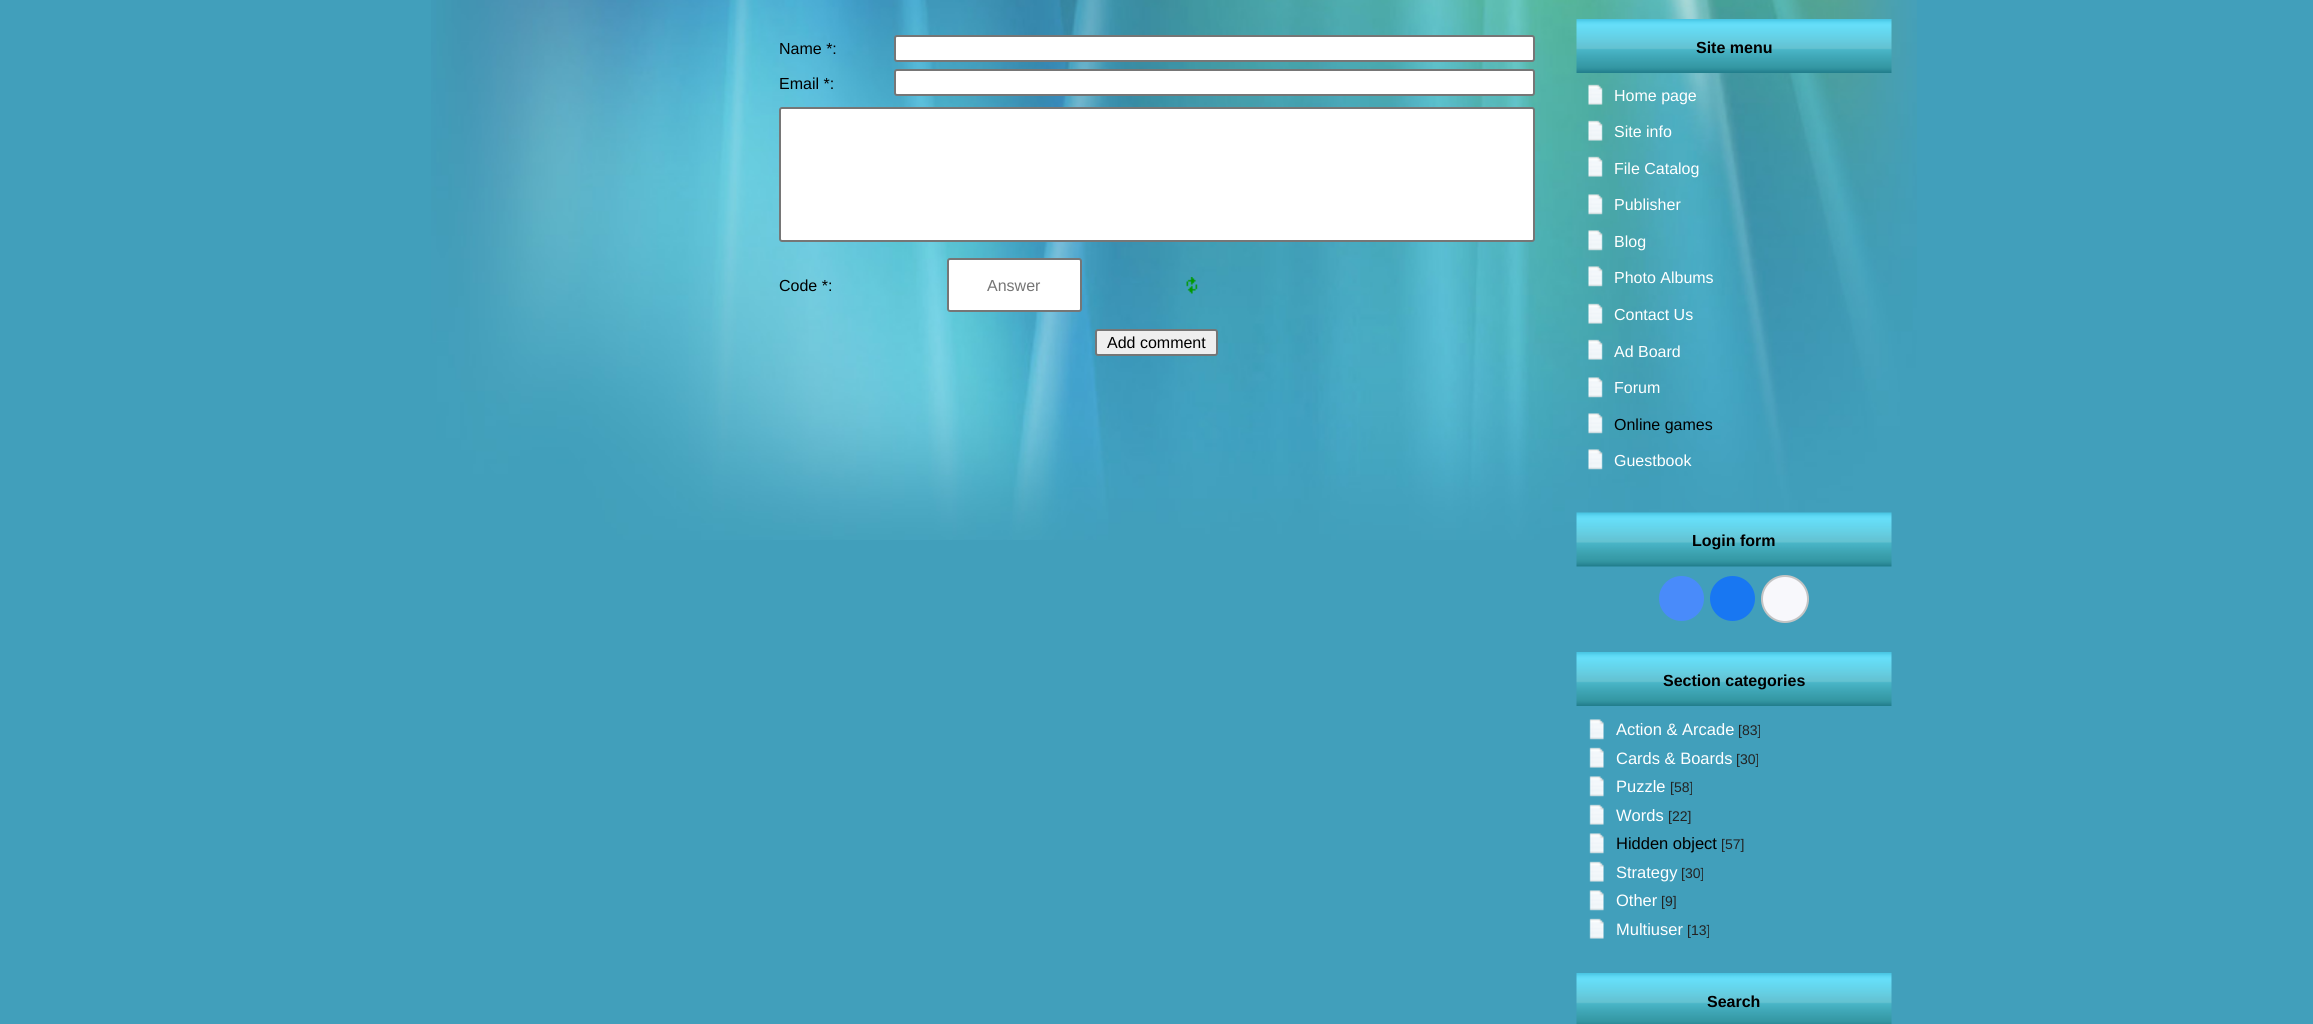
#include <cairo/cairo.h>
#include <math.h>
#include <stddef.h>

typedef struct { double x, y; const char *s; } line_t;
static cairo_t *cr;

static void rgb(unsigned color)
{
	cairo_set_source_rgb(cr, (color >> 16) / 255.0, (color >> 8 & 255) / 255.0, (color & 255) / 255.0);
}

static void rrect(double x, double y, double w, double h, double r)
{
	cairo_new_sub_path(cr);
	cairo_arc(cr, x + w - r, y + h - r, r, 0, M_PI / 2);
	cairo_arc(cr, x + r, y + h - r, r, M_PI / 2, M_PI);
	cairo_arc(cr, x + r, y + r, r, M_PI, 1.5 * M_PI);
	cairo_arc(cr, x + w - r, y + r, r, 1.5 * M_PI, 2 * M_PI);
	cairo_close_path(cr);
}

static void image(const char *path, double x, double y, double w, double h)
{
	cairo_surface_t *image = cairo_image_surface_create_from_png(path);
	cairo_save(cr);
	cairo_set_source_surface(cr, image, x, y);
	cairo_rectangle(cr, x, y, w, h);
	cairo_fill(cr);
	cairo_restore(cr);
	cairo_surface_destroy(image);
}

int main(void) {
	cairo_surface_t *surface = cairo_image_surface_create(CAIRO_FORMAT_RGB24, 2313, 1024);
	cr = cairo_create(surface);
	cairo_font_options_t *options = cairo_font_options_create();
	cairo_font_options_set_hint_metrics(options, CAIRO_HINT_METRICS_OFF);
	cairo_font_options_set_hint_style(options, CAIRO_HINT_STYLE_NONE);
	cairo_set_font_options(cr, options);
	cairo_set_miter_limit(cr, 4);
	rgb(0x419fbb);
	cairo_paint(cr);
	image("img/1.png", 431, 0, 1486, 540);
	rgb(0xffffff);
	rrect(895, 36, 639, 25, 2);
	cairo_fill_preserve(cr);
	rgb(0x767676);
	cairo_stroke(cr);
	rgb(0xffffff);
	rrect(895, 70, 639, 25, 2);
	cairo_fill_preserve(cr);
	rgb(0x767676);
	cairo_stroke(cr);
	rgb(0xffffff);
	rrect(780, 108, 754, 133, 2);
	cairo_fill_preserve(cr);
	rgb(0x767676);
	cairo_stroke(cr);
	rgb(0xffffff);
	rrect(948, 259, 133, 52, 2);
	cairo_fill_preserve(cr);
	rgb(0x767676);
	cairo_stroke(cr);
	image("img/2.png", 1186, 277, 12, 17);
	rgb(0xefefef);
	rrect(1096, 330, 121, 25, 2);
	cairo_fill_preserve(cr);
	rgb(0x767676);
	cairo_stroke(cr);
	image("img/3.png", 1576, 19, 316, 54);
	image("img/4.png", 1588, 84, 15, 21);
	image("img/5.png", 1588, 120, 15, 21);
	image("img/6.png", 1588, 156, 15, 21);
	image("img/7.png", 1588, 194, 15, 21);
	image("img/8.png", 1588, 230, 15, 21);
	image("img/9.png", 1588, 266, 15, 21);
	image("img/10.png", 1588, 303, 15, 21);
	image("img/11.png", 1588, 339, 15, 21);
	image("img/12.png", 1588, 377, 15, 21);
	image("img/13.png", 1588, 413, 15, 21);
	image("img/14.png", 1588, 449, 15, 21);
	image("img/15.png", 1576, 512, 316, 55);
	rgb(0x498bfa);
	cairo_arc(cr, 1681.5, 598.5, 22.5, 0, 2 * M_PI);
	cairo_fill(cr);
	rgb(0x1877f2);
	cairo_arc(cr, 1732.5, 598.5, 22.5, 0, 2 * M_PI);
	cairo_fill(cr);
	rgb(0xf8f8fc);
	cairo_arc(cr, 1785, 599, 23, 0, 2 * M_PI);
	cairo_fill_preserve(cr);
	rgb(0xc4c4c4);
	cairo_stroke(cr);
	image("img/16.png", 1576, 652, 316, 54);
	image("img/17.png", 1589, 719, 15, 21);
	image("img/18.png", 1589, 747, 15, 21);
	image("img/17.png", 1589, 776, 15, 21);
	image("img/18.png", 1589, 804, 15, 21);
	image("img/17.png", 1589, 833, 15, 21);
	image("img/18.png", 1589, 861, 15, 21);
	image("img/17.png", 1589, 890, 15, 21);
	image("img/18.png", 1589, 918, 15, 21);
	image("img/19.png", 1576, 973, 316, 51);
	cairo_select_font_face(cr, "Liberation Sans", CAIRO_FONT_SLANT_NORMAL, CAIRO_FONT_WEIGHT_NORMAL);
	cairo_set_font_size(cr, 16);
	rgb(0x000000);
	{
		static const line_t items[] = {
			{779, 54, "Name *:"},
			{779, 89, "Email *:"},
			{779, 291, "Code *:"},
		};
		for (size_t i = 0; i < sizeof items / sizeof *items; i++) {
			cairo_move_to(cr, items[i].x, items[i].y);
			cairo_show_text(cr, items[i].s);
		}
	}
	rgb(0x757575);
	cairo_move_to(cr, 987, 291);
	cairo_show_text(cr, "Answer");
	rgb(0x000000);
	cairo_move_to(cr, 1107, 348);
	cairo_show_text(cr, "Add comment");
	cairo_select_font_face(cr, "Liberation Sans", CAIRO_FONT_SLANT_NORMAL, CAIRO_FONT_WEIGHT_BOLD);
	cairo_move_to(cr, 1696, 53);
	cairo_show_text(cr, "Site menu");
	cairo_select_font_face(cr, "Liberation Sans", CAIRO_FONT_SLANT_NORMAL, CAIRO_FONT_WEIGHT_NORMAL);
	rgb(0xffffff);
	{
		static const line_t items[] = {
			{1614, 101, "Home page"},
			{1614, 137, "Site info"},
			{1614, 174, "File Catalog"},
			{1614, 210, "Publisher"},
			{1614, 247, "Blog"},
			{1614, 283, "Photo Albums"},
			{1614, 320, "Contact Us"},
			{1614, 357, "Ad Board"},
			{1614, 393, "Forum"},
		};
		for (size_t i = 0; i < sizeof items / sizeof *items; i++) {
			cairo_move_to(cr, items[i].x, items[i].y);
			cairo_show_text(cr, items[i].s);
		}
	}
	rgb(0x000000);
	cairo_move_to(cr, 1614, 430);
	cairo_show_text(cr, "Online games");
	rgb(0xffffff);
	cairo_move_to(cr, 1614, 466);
	cairo_show_text(cr, "Guestbook");
	cairo_select_font_face(cr, "Liberation Sans", CAIRO_FONT_SLANT_NORMAL, CAIRO_FONT_WEIGHT_BOLD);
	rgb(0x000000);
	cairo_move_to(cr, 1692, 546);
	cairo_show_text(cr, "Login form");
	cairo_move_to(cr, 1663, 686);
	cairo_show_text(cr, "Section categories");
	cairo_select_font_face(cr, "Liberation Sans", CAIRO_FONT_SLANT_NORMAL, CAIRO_FONT_WEIGHT_NORMAL);
	cairo_set_font_size(cr, 16.5);
	rgb(0xffffff);
	cairo_move_to(cr, 1616, 735);
	cairo_show_text(cr, "Action & Arcade");
	cairo_set_font_size(cr, 14);
	rgb(0x222222);
	cairo_move_to(cr, 1738, 735);
	cairo_show_text(cr, "[83]");
	cairo_set_font_size(cr, 16.5);
	rgb(0xffffff);
	cairo_move_to(cr, 1616, 764);
	cairo_show_text(cr, "Cards & Boards");
	cairo_set_font_size(cr, 14);
	rgb(0x222222);
	cairo_move_to(cr, 1736, 764);
	cairo_show_text(cr, "[30]");
	cairo_set_font_size(cr, 16.5);
	rgb(0xffffff);
	cairo_move_to(cr, 1616, 792);
	cairo_show_text(cr, "Puzzle");
	cairo_set_font_size(cr, 14);
	rgb(0x222222);
	cairo_move_to(cr, 1670, 792);
	cairo_show_text(cr, "[58]");
	cairo_set_font_size(cr, 16.5);
	rgb(0xffffff);
	cairo_move_to(cr, 1616, 821);
	cairo_show_text(cr, "Words");
	cairo_set_font_size(cr, 14);
	rgb(0x222222);
	cairo_move_to(cr, 1668, 821);
	cairo_show_text(cr, "[22]");
	cairo_set_font_size(cr, 16.5);
	rgb(0x000000);
	cairo_move_to(cr, 1616, 849);
	cairo_show_text(cr, "Hidden object");
	cairo_set_font_size(cr, 14);
	rgb(0x222222);
	cairo_move_to(cr, 1721, 849);
	cairo_show_text(cr, "[57]");
	cairo_set_font_size(cr, 16.5);
	rgb(0xffffff);
	cairo_move_to(cr, 1616, 878);
	cairo_show_text(cr, "Strategy");
	cairo_set_font_size(cr, 14);
	rgb(0x222222);
	cairo_move_to(cr, 1681, 878);
	cairo_show_text(cr, "[30]");
	cairo_set_font_size(cr, 16.5);
	rgb(0xffffff);
	cairo_move_to(cr, 1616, 906);
	cairo_show_text(cr, "Other");
	cairo_set_font_size(cr, 14);
	rgb(0x222222);
	cairo_move_to(cr, 1661, 906);
	cairo_show_text(cr, "[9]");
	cairo_set_font_size(cr, 16.5);
	rgb(0xffffff);
	cairo_move_to(cr, 1616, 935);
	cairo_show_text(cr, "Multiuser");
	cairo_set_font_size(cr, 14);
	rgb(0x222222);
	cairo_move_to(cr, 1687, 935);
	cairo_show_text(cr, "[13]");
	cairo_select_font_face(cr, "Liberation Sans", CAIRO_FONT_SLANT_NORMAL, CAIRO_FONT_WEIGHT_BOLD);
	cairo_set_font_size(cr, 16);
	rgb(0x000000);
	cairo_move_to(cr, 1707, 1007);
	cairo_show_text(cr, "Search");
	cairo_surface_write_to_png(surface, "page.png");
	cairo_font_options_destroy(options);
	cairo_destroy(cr);
	cairo_surface_destroy(surface);
	return 0;
}
